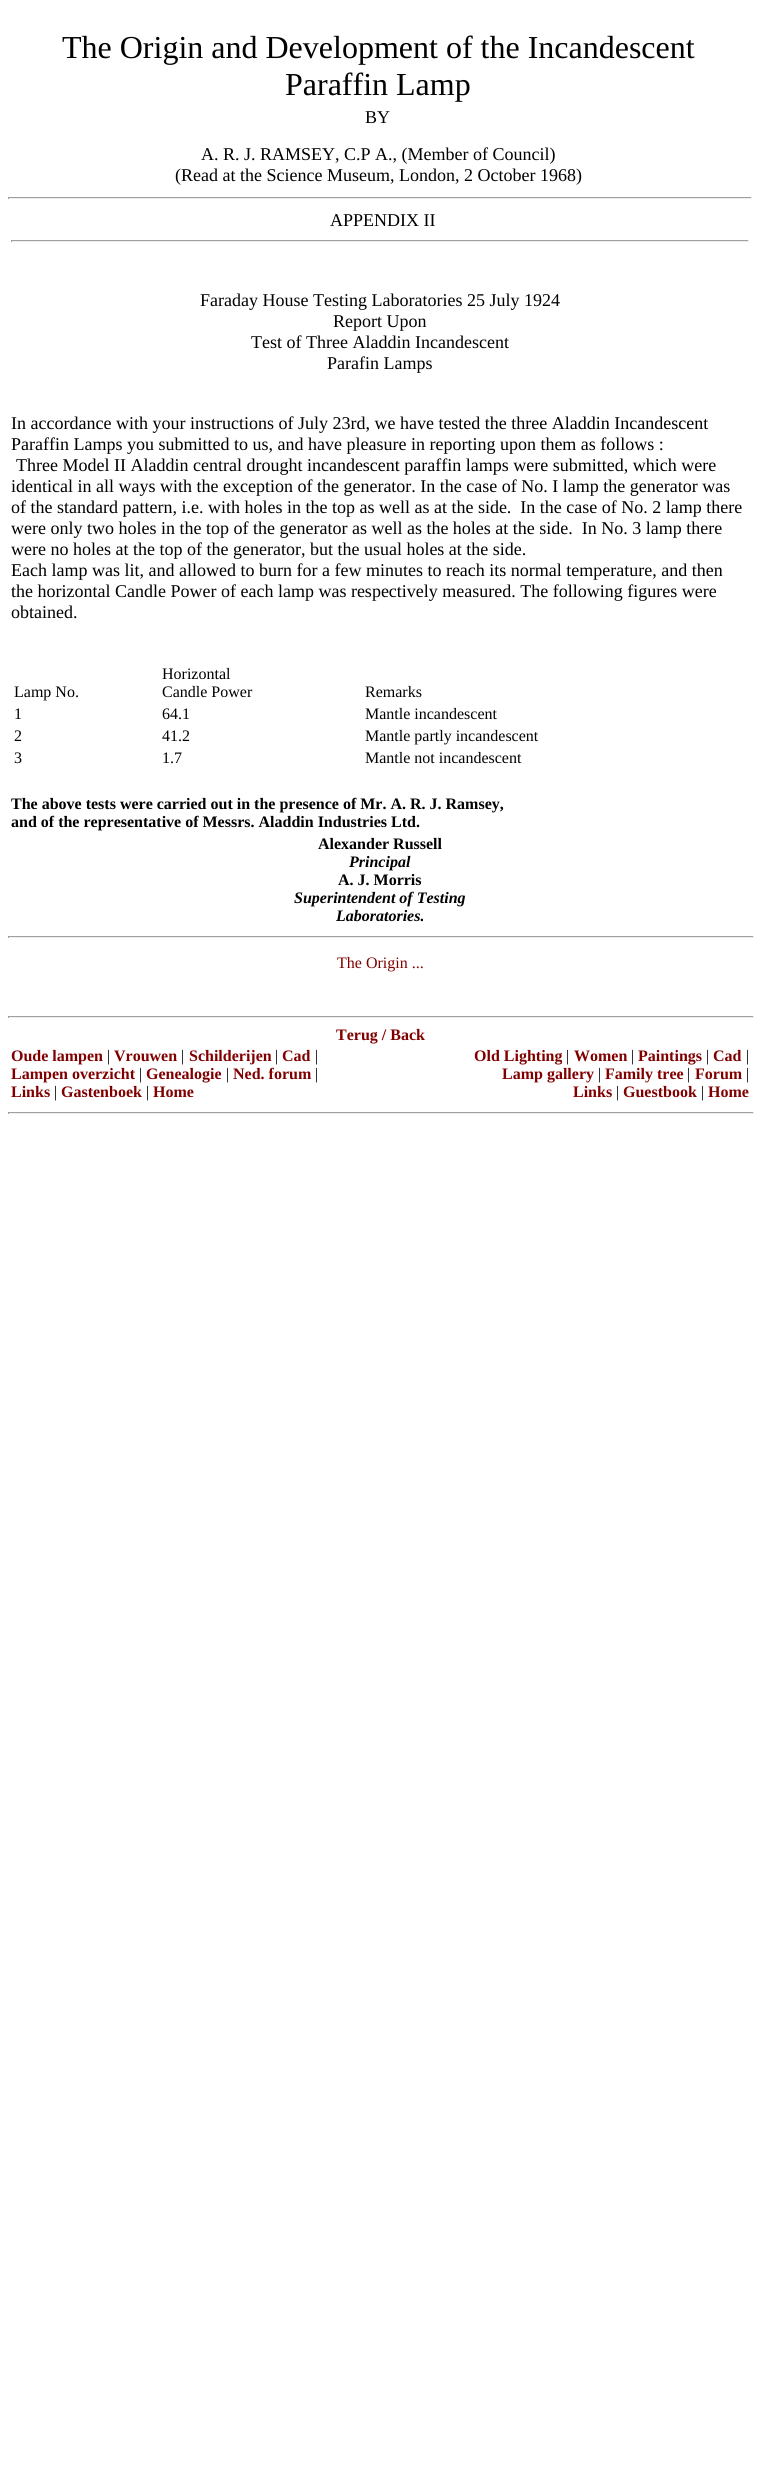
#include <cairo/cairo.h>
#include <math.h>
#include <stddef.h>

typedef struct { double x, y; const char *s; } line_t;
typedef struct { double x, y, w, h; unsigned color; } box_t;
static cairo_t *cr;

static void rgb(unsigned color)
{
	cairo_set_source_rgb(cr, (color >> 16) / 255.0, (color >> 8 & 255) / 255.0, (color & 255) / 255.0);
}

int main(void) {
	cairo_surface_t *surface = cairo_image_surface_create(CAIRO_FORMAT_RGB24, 760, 2478);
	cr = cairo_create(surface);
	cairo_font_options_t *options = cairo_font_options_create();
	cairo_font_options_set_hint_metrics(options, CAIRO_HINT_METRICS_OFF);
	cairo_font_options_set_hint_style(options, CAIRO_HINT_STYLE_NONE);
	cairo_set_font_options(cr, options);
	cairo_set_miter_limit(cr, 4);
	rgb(0xffffff);
	cairo_paint(cr);
	{
		static const box_t items[] = {
			{8, 197, 744, 1, 0x9f9f9f},
			{751, 197, 1, 2, 0xeeeeee},
			{8, 198, 744, 1, 0xeeeeee},
			{8, 197, 1, 2, 0x9f9f9f},
			{11, 240, 738, 1, 0x9f9f9f},
			{748, 240, 1, 2, 0xeeeeee},
			{11, 241, 738, 1, 0xeeeeee},
			{11, 240, 1, 2, 0x9f9f9f},
			{8, 936, 746, 1, 0x9f9f9f},
			{753, 936, 1, 2, 0xeeeeee},
			{8, 937, 746, 1, 0xeeeeee},
			{8, 936, 1, 2, 0x9f9f9f},
			{8, 1016, 746, 1, 0x9f9f9f},
			{753, 1016, 1, 2, 0xeeeeee},
			{8, 1017, 746, 1, 0xeeeeee},
			{8, 1016, 1, 2, 0x9f9f9f},
			{8, 1112, 746, 1, 0x9f9f9f},
			{753, 1112, 1, 2, 0xeeeeee},
			{8, 1113, 746, 1, 0xeeeeee},
			{8, 1112, 1, 2, 0x9f9f9f},
		};
		for (size_t i = 0; i < sizeof items / sizeof *items; i++) {
			rgb(items[i].color);
			cairo_rectangle(cr, items[i].x, items[i].y, items[i].w, items[i].h);
			cairo_fill(cr);
		}
	}
	cairo_select_font_face(cr, "Liberation Serif", CAIRO_FONT_SLANT_NORMAL, CAIRO_FONT_WEIGHT_NORMAL);
	cairo_set_font_size(cr, 32);
	rgb(0x000000);
	cairo_move_to(cr, 62, 58);
	cairo_show_text(cr, "The Origin and Development of the Incandescent");
	cairo_move_to(cr, 285, 95);
	cairo_show_text(cr, "Paraffin Lamp");
	cairo_set_font_size(cr, 18);
	{
		static const line_t items[] = {
			{365, 123, "BY"},
			{201, 160, "A. R. J. RAMSEY, C.P A., (Member of Council)"},
			{175, 181, "(Read at the Science Museum, London, 2 October 1968)"},
			{330, 226, "APPENDIX II"},
			{200, 306, "Faraday House Testing Laboratories 25 July 1924"},
			{333, 327, "Report Upon"},
			{251, 348, "Test of Three Aladdin Incandescent"},
			{327, 369, "Parafin Lamps"},
			{11, 429, "In accordance with your instructions of July 23rd, we have tested the three Aladdin Incandescent"},
			{11, 450, "Paraffin Lamps you submitted to us, and have pleasure in reporting upon them as follows :"},
			{16, 471, "Three Model II Aladdin central drought incandescent paraffin lamps were submitted, which were"},
			{11, 492, "identical in all ways with the exception of the generator. In the case of No. I lamp the generator was"},
			{11, 513, "of the standard pattern, i.e. with holes in the top as well as at the side.  In the case of No. 2 lamp there"},
			{11, 534, "were only two holes in the top of the generator as well as the holes at the side.  In No. 3 lamp there"},
			{11, 555, "were no holes at the top of the generator, but the usual holes at the side."},
			{11, 576, "Each lamp was lit, and allowed to burn for a few minutes to reach its normal temperature, and then"},
			{11, 597, "the horizontal Candle Power of each lamp was respectively measured. The following figures were"},
			{11, 618, "obtained."},
		};
		for (size_t i = 0; i < sizeof items / sizeof *items; i++) {
			cairo_move_to(cr, items[i].x, items[i].y);
			cairo_show_text(cr, items[i].s);
		}
	}
	cairo_set_font_size(cr, 16);
	{
		static const line_t items[] = {
			{14, 697, "Lamp No."},
			{162, 679, "Horizontal"},
			{162, 697, "Candle Power"},
			{365, 697, "Remarks"},
			{14, 719, "1"},
			{162, 719, "64.1"},
			{365, 719, "Mantle incandescent"},
			{14, 741, "2"},
			{162, 741, "41.2"},
			{365, 741, "Mantle partly incandescent"},
			{14, 763, "3"},
			{162, 763, "1.7"},
			{365, 763, "Mantle not incandescent"},
		};
		for (size_t i = 0; i < sizeof items / sizeof *items; i++) {
			cairo_move_to(cr, items[i].x, items[i].y);
			cairo_show_text(cr, items[i].s);
		}
	}
	cairo_select_font_face(cr, "Liberation Serif", CAIRO_FONT_SLANT_NORMAL, CAIRO_FONT_WEIGHT_BOLD);
	{
		static const line_t items[] = {
			{11, 809, "The above tests were carried out in the presence of Mr. A. R. J. Ramsey,"},
			{11, 827, "and of the representative of Messrs. Aladdin Industries Ltd."},
			{318, 849, "Alexander Russell"},
		};
		for (size_t i = 0; i < sizeof items / sizeof *items; i++) {
			cairo_move_to(cr, items[i].x, items[i].y);
			cairo_show_text(cr, items[i].s);
		}
	}
	cairo_select_font_face(cr, "Liberation Serif", CAIRO_FONT_SLANT_ITALIC, CAIRO_FONT_WEIGHT_BOLD);
	cairo_move_to(cr, 349, 867);
	cairo_show_text(cr, "Principal");
	cairo_select_font_face(cr, "Liberation Serif", CAIRO_FONT_SLANT_NORMAL, CAIRO_FONT_WEIGHT_BOLD);
	cairo_move_to(cr, 338, 885);
	cairo_show_text(cr, "A. J. Morris");
	cairo_select_font_face(cr, "Liberation Serif", CAIRO_FONT_SLANT_ITALIC, CAIRO_FONT_WEIGHT_BOLD);
	cairo_move_to(cr, 294, 903);
	cairo_show_text(cr, "Superintendent of Testing");
	cairo_move_to(cr, 336, 921);
	cairo_show_text(cr, "Laboratories.");
	cairo_select_font_face(cr, "Liberation Serif", CAIRO_FONT_SLANT_NORMAL, CAIRO_FONT_WEIGHT_NORMAL);
	rgb(0x800000);
	cairo_move_to(cr, 337, 968);
	cairo_show_text(cr, "The Origin ...");
	cairo_select_font_face(cr, "Liberation Serif", CAIRO_FONT_SLANT_NORMAL, CAIRO_FONT_WEIGHT_BOLD);
	cairo_move_to(cr, 336, 1040);
	cairo_show_text(cr, "Terug / Back");
	cairo_move_to(cr, 11, 1061);
	cairo_show_text(cr, "Oude lampen");
	cairo_select_font_face(cr, "Liberation Serif", CAIRO_FONT_SLANT_NORMAL, CAIRO_FONT_WEIGHT_NORMAL);
	rgb(0x000000);
	cairo_move_to(cr, 107, 1061);
	cairo_show_text(cr, "|");
	cairo_select_font_face(cr, "Liberation Serif", CAIRO_FONT_SLANT_NORMAL, CAIRO_FONT_WEIGHT_BOLD);
	rgb(0x800000);
	cairo_move_to(cr, 114, 1061);
	cairo_show_text(cr, "Vrouwen");
	cairo_select_font_face(cr, "Liberation Serif", CAIRO_FONT_SLANT_NORMAL, CAIRO_FONT_WEIGHT_NORMAL);
	rgb(0x000000);
	cairo_move_to(cr, 181, 1061);
	cairo_show_text(cr, "|");
	cairo_select_font_face(cr, "Liberation Serif", CAIRO_FONT_SLANT_NORMAL, CAIRO_FONT_WEIGHT_BOLD);
	rgb(0x800000);
	cairo_move_to(cr, 189, 1061);
	cairo_show_text(cr, "Schilderijen");
	cairo_select_font_face(cr, "Liberation Serif", CAIRO_FONT_SLANT_NORMAL, CAIRO_FONT_WEIGHT_NORMAL);
	rgb(0x000000);
	cairo_move_to(cr, 275, 1061);
	cairo_show_text(cr, "|");
	cairo_select_font_face(cr, "Liberation Serif", CAIRO_FONT_SLANT_NORMAL, CAIRO_FONT_WEIGHT_BOLD);
	rgb(0x800000);
	cairo_move_to(cr, 282, 1061);
	cairo_show_text(cr, "Cad");
	cairo_select_font_face(cr, "Liberation Serif", CAIRO_FONT_SLANT_NORMAL, CAIRO_FONT_WEIGHT_NORMAL);
	rgb(0x000000);
	cairo_move_to(cr, 315, 1061);
	cairo_show_text(cr, "|");
	cairo_select_font_face(cr, "Liberation Serif", CAIRO_FONT_SLANT_NORMAL, CAIRO_FONT_WEIGHT_BOLD);
	rgb(0x800000);
	cairo_move_to(cr, 11, 1079);
	cairo_show_text(cr, "Lampen overzicht");
	cairo_select_font_face(cr, "Liberation Serif", CAIRO_FONT_SLANT_NORMAL, CAIRO_FONT_WEIGHT_NORMAL);
	rgb(0x000000);
	cairo_move_to(cr, 139, 1079);
	cairo_show_text(cr, "|");
	cairo_select_font_face(cr, "Liberation Serif", CAIRO_FONT_SLANT_NORMAL, CAIRO_FONT_WEIGHT_BOLD);
	rgb(0x800000);
	cairo_move_to(cr, 146, 1079);
	cairo_show_text(cr, "Genealogie");
	cairo_select_font_face(cr, "Liberation Serif", CAIRO_FONT_SLANT_NORMAL, CAIRO_FONT_WEIGHT_NORMAL);
	rgb(0x000000);
	cairo_move_to(cr, 226, 1079);
	cairo_show_text(cr, "|");
	cairo_select_font_face(cr, "Liberation Serif", CAIRO_FONT_SLANT_NORMAL, CAIRO_FONT_WEIGHT_BOLD);
	rgb(0x800000);
	cairo_move_to(cr, 233, 1079);
	cairo_show_text(cr, "Ned. forum");
	cairo_select_font_face(cr, "Liberation Serif", CAIRO_FONT_SLANT_NORMAL, CAIRO_FONT_WEIGHT_NORMAL);
	rgb(0x000000);
	cairo_move_to(cr, 315, 1079);
	cairo_show_text(cr, "|");
	cairo_select_font_face(cr, "Liberation Serif", CAIRO_FONT_SLANT_NORMAL, CAIRO_FONT_WEIGHT_BOLD);
	rgb(0x800000);
	cairo_move_to(cr, 11, 1097);
	cairo_show_text(cr, "Links");
	cairo_select_font_face(cr, "Liberation Serif", CAIRO_FONT_SLANT_NORMAL, CAIRO_FONT_WEIGHT_NORMAL);
	rgb(0x000000);
	cairo_move_to(cr, 54, 1097);
	cairo_show_text(cr, "|");
	cairo_select_font_face(cr, "Liberation Serif", CAIRO_FONT_SLANT_NORMAL, CAIRO_FONT_WEIGHT_BOLD);
	rgb(0x800000);
	cairo_move_to(cr, 61, 1097);
	cairo_show_text(cr, "Gastenboek");
	cairo_select_font_face(cr, "Liberation Serif", CAIRO_FONT_SLANT_NORMAL, CAIRO_FONT_WEIGHT_NORMAL);
	rgb(0x000000);
	cairo_move_to(cr, 146, 1097);
	cairo_show_text(cr, "|");
	cairo_select_font_face(cr, "Liberation Serif", CAIRO_FONT_SLANT_NORMAL, CAIRO_FONT_WEIGHT_BOLD);
	rgb(0x800000);
	cairo_move_to(cr, 153, 1097);
	cairo_show_text(cr, "Home");
	cairo_move_to(cr, 474, 1061);
	cairo_show_text(cr, "Old Lighting");
	cairo_select_font_face(cr, "Liberation Serif", CAIRO_FONT_SLANT_NORMAL, CAIRO_FONT_WEIGHT_NORMAL);
	rgb(0x000000);
	cairo_move_to(cr, 566, 1061);
	cairo_show_text(cr, "|");
	cairo_select_font_face(cr, "Liberation Serif", CAIRO_FONT_SLANT_NORMAL, CAIRO_FONT_WEIGHT_BOLD);
	rgb(0x800000);
	cairo_move_to(cr, 574, 1061);
	cairo_show_text(cr, "Women");
	cairo_select_font_face(cr, "Liberation Serif", CAIRO_FONT_SLANT_NORMAL, CAIRO_FONT_WEIGHT_NORMAL);
	rgb(0x000000);
	cairo_move_to(cr, 631, 1061);
	cairo_show_text(cr, "|");
	cairo_select_font_face(cr, "Liberation Serif", CAIRO_FONT_SLANT_NORMAL, CAIRO_FONT_WEIGHT_BOLD);
	rgb(0x800000);
	cairo_move_to(cr, 638, 1061);
	cairo_show_text(cr, "Paintings");
	cairo_select_font_face(cr, "Liberation Serif", CAIRO_FONT_SLANT_NORMAL, CAIRO_FONT_WEIGHT_NORMAL);
	rgb(0x000000);
	cairo_move_to(cr, 706, 1061);
	cairo_show_text(cr, "|");
	cairo_select_font_face(cr, "Liberation Serif", CAIRO_FONT_SLANT_NORMAL, CAIRO_FONT_WEIGHT_BOLD);
	rgb(0x800000);
	cairo_move_to(cr, 713, 1061);
	cairo_show_text(cr, "Cad");
	cairo_select_font_face(cr, "Liberation Serif", CAIRO_FONT_SLANT_NORMAL, CAIRO_FONT_WEIGHT_NORMAL);
	rgb(0x000000);
	cairo_move_to(cr, 746, 1061);
	cairo_show_text(cr, "|");
	cairo_select_font_face(cr, "Liberation Serif", CAIRO_FONT_SLANT_NORMAL, CAIRO_FONT_WEIGHT_BOLD);
	rgb(0x800000);
	cairo_move_to(cr, 502, 1079);
	cairo_show_text(cr, "Lamp gallery");
	cairo_select_font_face(cr, "Liberation Serif", CAIRO_FONT_SLANT_NORMAL, CAIRO_FONT_WEIGHT_NORMAL);
	rgb(0x000000);
	cairo_move_to(cr, 598, 1079);
	cairo_show_text(cr, "|");
	cairo_select_font_face(cr, "Liberation Serif", CAIRO_FONT_SLANT_NORMAL, CAIRO_FONT_WEIGHT_BOLD);
	rgb(0x800000);
	cairo_move_to(cr, 605, 1079);
	cairo_show_text(cr, "Family tree");
	cairo_select_font_face(cr, "Liberation Serif", CAIRO_FONT_SLANT_NORMAL, CAIRO_FONT_WEIGHT_NORMAL);
	rgb(0x000000);
	cairo_move_to(cr, 687, 1079);
	cairo_show_text(cr, "|");
	cairo_select_font_face(cr, "Liberation Serif", CAIRO_FONT_SLANT_NORMAL, CAIRO_FONT_WEIGHT_BOLD);
	rgb(0x800000);
	cairo_move_to(cr, 695, 1079);
	cairo_show_text(cr, "Forum");
	cairo_select_font_face(cr, "Liberation Serif", CAIRO_FONT_SLANT_NORMAL, CAIRO_FONT_WEIGHT_NORMAL);
	rgb(0x000000);
	cairo_move_to(cr, 746, 1079);
	cairo_show_text(cr, "|");
	cairo_select_font_face(cr, "Liberation Serif", CAIRO_FONT_SLANT_NORMAL, CAIRO_FONT_WEIGHT_BOLD);
	rgb(0x800000);
	cairo_move_to(cr, 573, 1097);
	cairo_show_text(cr, "Links");
	cairo_select_font_face(cr, "Liberation Serif", CAIRO_FONT_SLANT_NORMAL, CAIRO_FONT_WEIGHT_NORMAL);
	rgb(0x000000);
	cairo_move_to(cr, 616, 1097);
	cairo_show_text(cr, "|");
	cairo_select_font_face(cr, "Liberation Serif", CAIRO_FONT_SLANT_NORMAL, CAIRO_FONT_WEIGHT_BOLD);
	rgb(0x800000);
	cairo_move_to(cr, 623, 1097);
	cairo_show_text(cr, "Guestbook");
	cairo_select_font_face(cr, "Liberation Serif", CAIRO_FONT_SLANT_NORMAL, CAIRO_FONT_WEIGHT_NORMAL);
	rgb(0x000000);
	cairo_move_to(cr, 701, 1097);
	cairo_show_text(cr, "|");
	cairo_select_font_face(cr, "Liberation Serif", CAIRO_FONT_SLANT_NORMAL, CAIRO_FONT_WEIGHT_BOLD);
	rgb(0x800000);
	cairo_move_to(cr, 708, 1097);
	cairo_show_text(cr, "Home");
	cairo_surface_write_to_png(surface, "page.png");
	cairo_font_options_destroy(options);
	cairo_destroy(cr);
	cairo_surface_destroy(surface);
	return 0;
}
